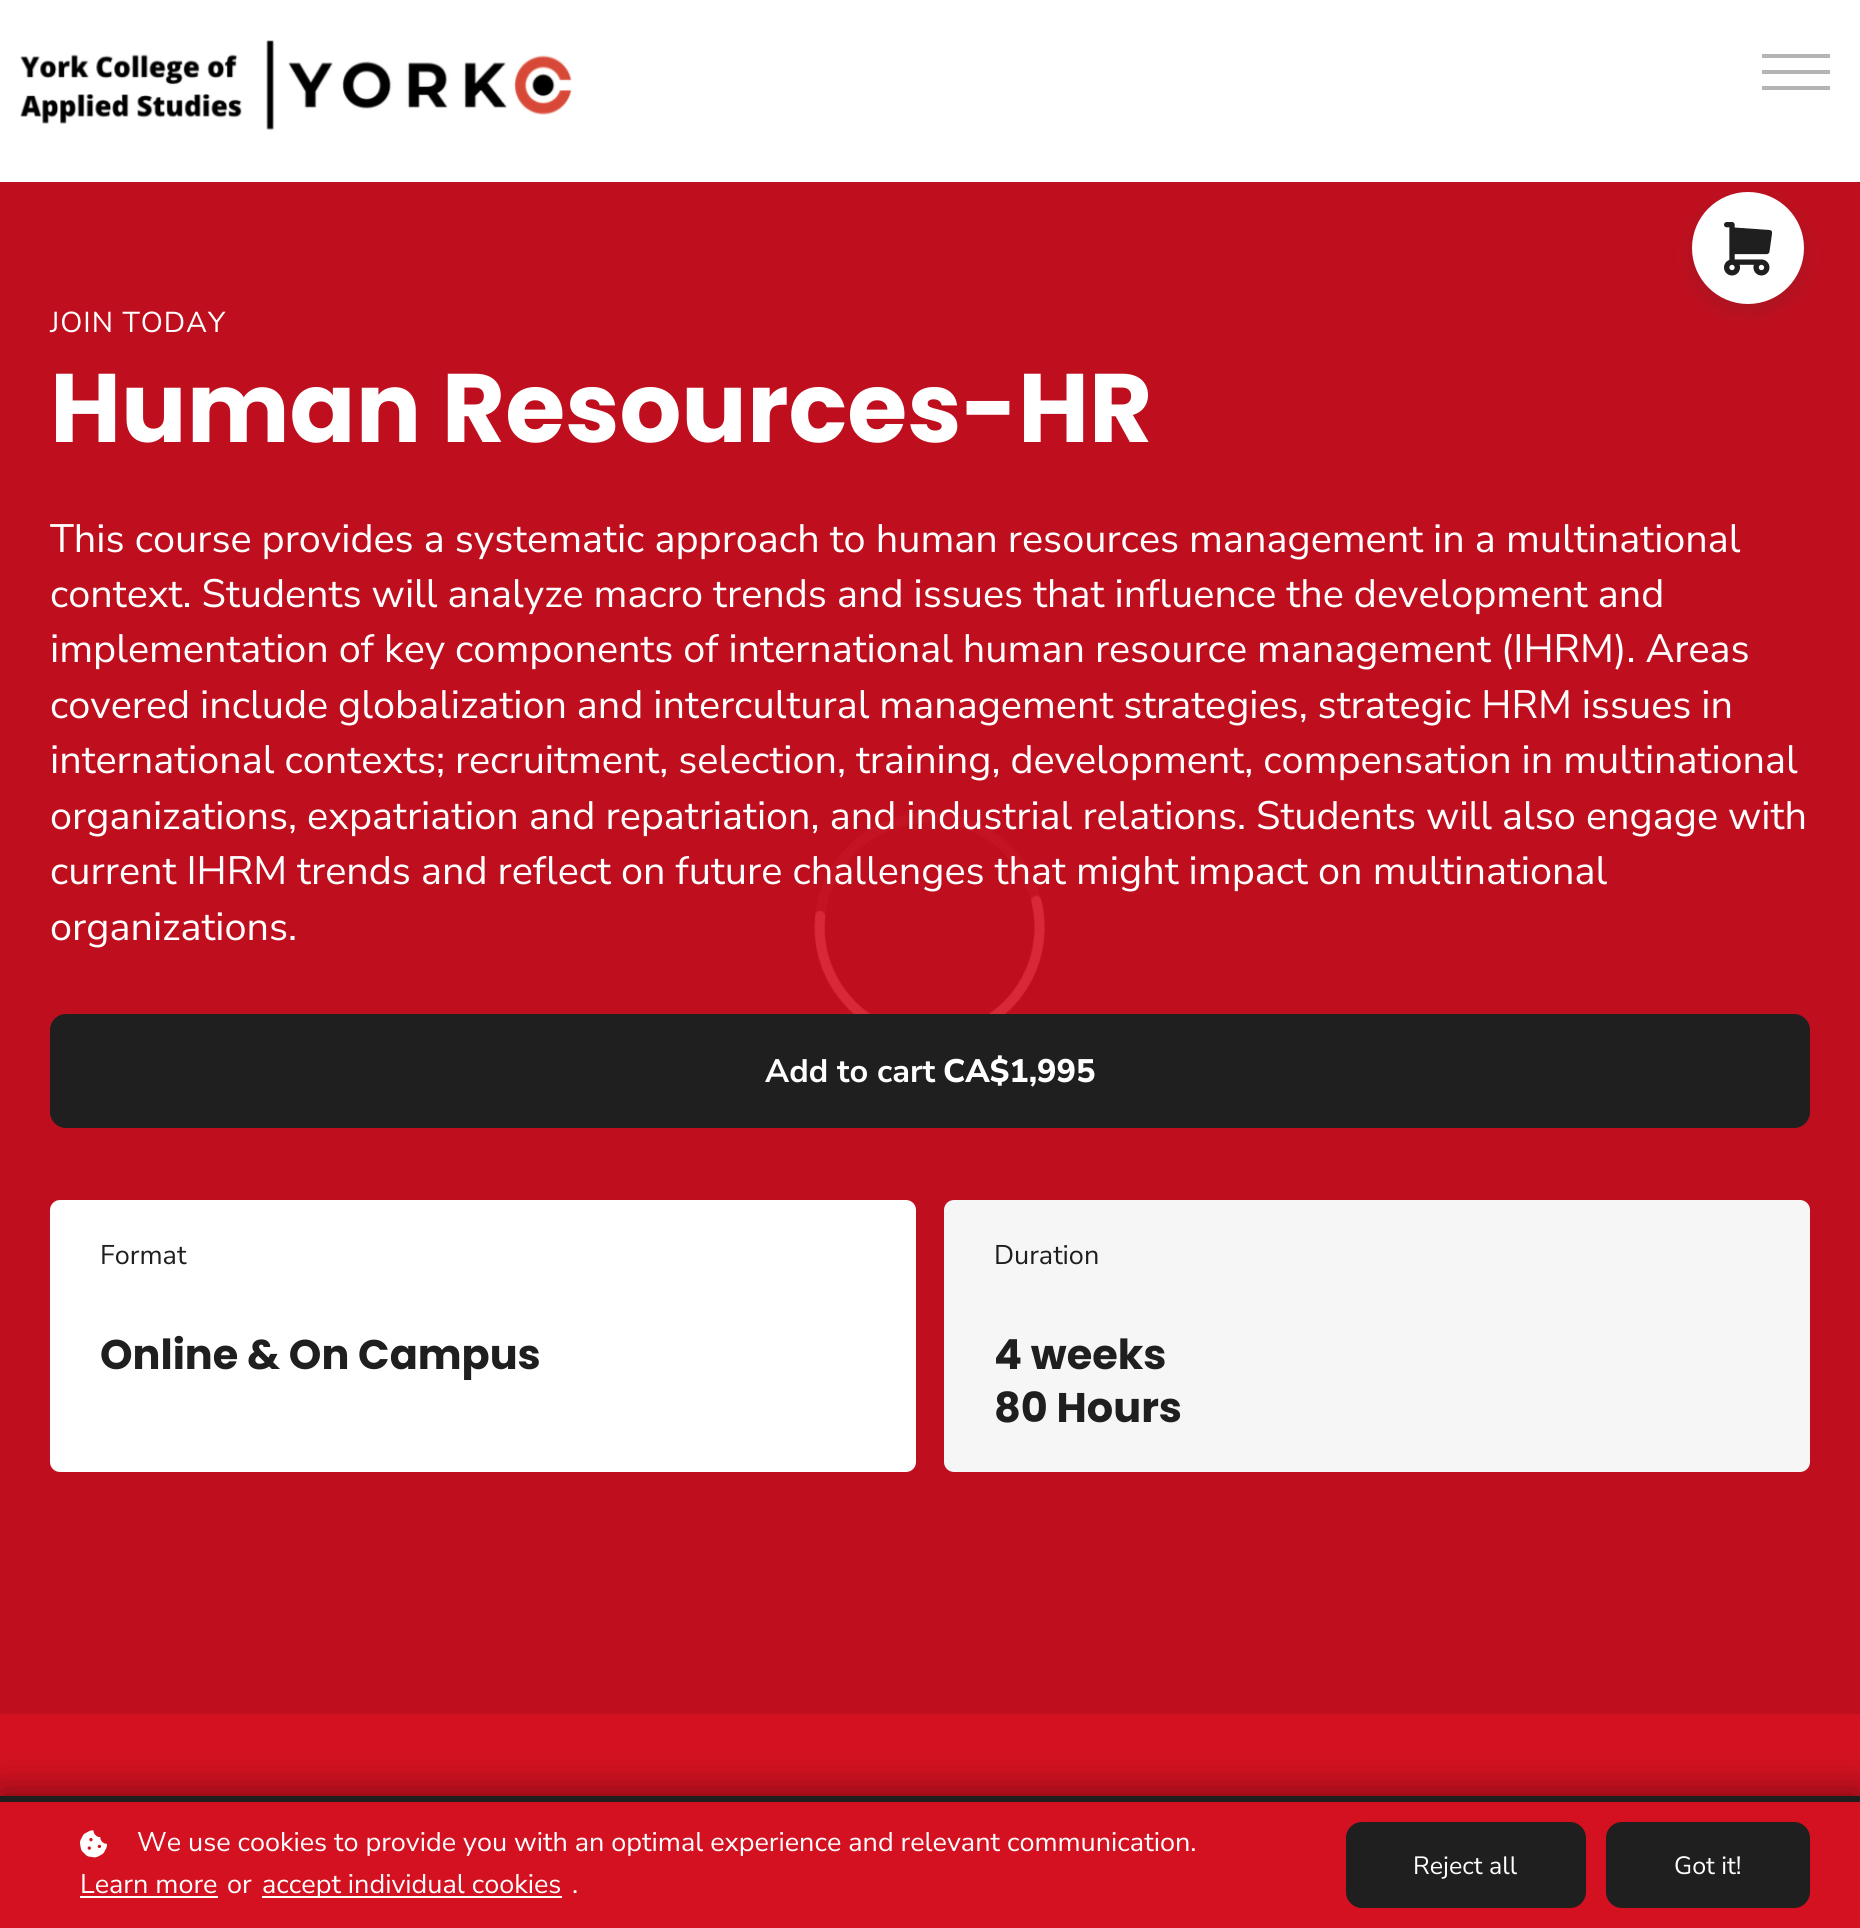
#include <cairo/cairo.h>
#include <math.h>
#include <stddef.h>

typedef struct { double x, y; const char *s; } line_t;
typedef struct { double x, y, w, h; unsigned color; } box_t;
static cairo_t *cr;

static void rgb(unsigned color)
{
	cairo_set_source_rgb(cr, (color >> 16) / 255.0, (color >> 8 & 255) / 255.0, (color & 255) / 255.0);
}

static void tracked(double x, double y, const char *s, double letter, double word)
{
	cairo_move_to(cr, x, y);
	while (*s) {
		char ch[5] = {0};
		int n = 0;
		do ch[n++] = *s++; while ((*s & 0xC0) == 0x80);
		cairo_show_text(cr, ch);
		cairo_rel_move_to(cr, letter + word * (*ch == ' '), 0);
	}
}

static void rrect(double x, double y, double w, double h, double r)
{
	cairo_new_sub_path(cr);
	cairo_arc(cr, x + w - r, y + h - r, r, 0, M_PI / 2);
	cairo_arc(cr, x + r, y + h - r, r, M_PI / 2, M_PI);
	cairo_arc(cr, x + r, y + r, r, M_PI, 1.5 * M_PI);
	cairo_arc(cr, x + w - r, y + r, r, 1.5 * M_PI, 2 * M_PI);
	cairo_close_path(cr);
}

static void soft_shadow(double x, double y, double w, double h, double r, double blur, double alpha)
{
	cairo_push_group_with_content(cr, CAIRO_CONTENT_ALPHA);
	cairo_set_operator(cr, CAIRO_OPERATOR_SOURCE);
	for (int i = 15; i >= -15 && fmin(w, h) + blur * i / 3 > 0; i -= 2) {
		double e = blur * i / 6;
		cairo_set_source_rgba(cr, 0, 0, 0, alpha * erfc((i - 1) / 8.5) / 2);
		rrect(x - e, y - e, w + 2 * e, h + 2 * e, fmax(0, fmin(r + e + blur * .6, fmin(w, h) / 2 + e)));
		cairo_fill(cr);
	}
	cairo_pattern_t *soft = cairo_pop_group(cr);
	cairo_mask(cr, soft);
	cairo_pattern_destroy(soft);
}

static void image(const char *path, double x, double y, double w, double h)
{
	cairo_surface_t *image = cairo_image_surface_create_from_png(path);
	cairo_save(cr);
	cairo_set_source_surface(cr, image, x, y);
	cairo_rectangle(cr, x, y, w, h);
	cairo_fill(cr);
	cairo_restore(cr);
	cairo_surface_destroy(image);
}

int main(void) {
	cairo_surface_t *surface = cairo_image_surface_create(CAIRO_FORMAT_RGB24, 1860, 1928);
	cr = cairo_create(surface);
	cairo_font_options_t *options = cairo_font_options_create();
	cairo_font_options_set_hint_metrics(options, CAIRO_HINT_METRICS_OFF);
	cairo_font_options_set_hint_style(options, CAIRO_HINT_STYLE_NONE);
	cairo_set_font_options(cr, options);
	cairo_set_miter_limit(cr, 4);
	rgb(0xffffff);
	cairo_paint(cr);
	rgb(0xbf0f1e);
	cairo_rectangle(cr, 0, 182, 1860, 1532);
	cairo_fill(cr);
	rgb(0x333333);
	soft_shadow(1692, 200, 112, 112, 56, 10, 0.16);
	rgb(0xffffff);
	cairo_arc(cr, 1748, 248, 56, 0, 2 * M_PI);
	cairo_fill(cr);
	image("img/1.png", 1724, 222, 48, 54);
	image("img/2.png", 20, 40, 552, 91);
	{
		static const box_t items[] = {
			{1762, 86, 68, 4, 0xb4b4b4},
			{1762, 54, 68, 4, 0xb4b4b4},
			{1762, 70, 68, 4, 0xb4b4b4},
		};
		for (size_t i = 0; i < sizeof items / sizeof *items; i++) {
			rgb(items[i].color);
			cairo_rectangle(cr, items[i].x, items[i].y, items[i].w, items[i].h);
			cairo_fill(cr);
		}
	}
	image("img/3.png", 813, 812, 233, 202);
	rgb(0x1f1f1f);
	rrect(50, 1014, 1760, 114, 16);
	cairo_fill(cr);
	rgb(0xffffff);
	rrect(50, 1200, 866, 272, 10);
	cairo_fill(cr);
	rgb(0xf6f6f6);
	rrect(944, 1200, 866, 272, 10);
	cairo_fill(cr);
	rgb(0xd41121);
	cairo_rectangle(cr, 0, 1714, 1860, 82);
	cairo_fill(cr);
	rgb(0x000000);
	soft_shadow(0, 1796, 1860, 132, 0, 20, 0.5);
	rgb(0xd41121);
	cairo_rectangle(cr, 0, 1802, 1860, 126);
	cairo_fill(cr);
	rgb(0x1f1f1f);
	cairo_rectangle(cr, 0, 1796, 1860, 6);
	cairo_fill(cr);
	image("img/4.png", 80, 1830, 27, 28);
	rgb(0xffffff);
	cairo_rectangle(cr, 80, 1896, 138, 2);
	cairo_fill(cr);
	cairo_rectangle(cr, 262, 1896, 300, 2);
	cairo_fill(cr);
	rgb(0x1f1f1f);
	rrect(1346, 1822, 240, 86, 16);
	cairo_fill(cr);
	rrect(1606, 1822, 204, 86, 16);
	cairo_fill(cr);
	cairo_select_font_face(cr, "Nunito Sans", CAIRO_FONT_SLANT_NORMAL, CAIRO_FONT_WEIGHT_NORMAL);
	cairo_set_font_size(cr, 28.75);
	rgb(0xffffff);
	tracked(50, 332, "JOIN TODAY", 1, 0);
	cairo_select_font_face(cr, "Poppins", CAIRO_FONT_SLANT_NORMAL, CAIRO_FONT_WEIGHT_BOLD);
	cairo_set_font_size(cr, 97.25);
	cairo_move_to(cr, 50, 442);
	cairo_show_text(cr, "Human Resources-HR");
	cairo_select_font_face(cr, "Nunito Sans", CAIRO_FONT_SLANT_NORMAL, CAIRO_FONT_WEIGHT_NORMAL);
	cairo_set_font_size(cr, 39.6);
	tracked(50, 552, "This course provides a systematic approach to human resources management in a multinational", 0, -0.1);
	tracked(50, 607, "context. Students will analyze macro trends and issues that influence the development and", 0, -0.1);
	{
		static const line_t items[] = {
			{50, 662, "implementation of key components of international human resource management (IHRM). Areas"},
			{50, 718, "covered include globalization and intercultural management strategies, strategic HRM issues in"},
			{50, 773, "international contexts; recruitment, selection, training, development, compensation in multinational"},
		};
		for (size_t i = 0; i < sizeof items / sizeof *items; i++) {
			tracked(items[i].x, items[i].y, items[i].s, 0, -0.25);
		}
	}
	tracked(50, 829, "organizations, expatriation and repatriation, and industrial relations. Students will also engage with", 0, -0.1);
	tracked(50, 884, "current IHRM trends and reflect on future challenges that might impact on multinational", 0, -0.1);
	cairo_move_to(cr, 50, 940);
	cairo_show_text(cr, "organizations.");
	cairo_select_font_face(cr, "Nunito Sans", CAIRO_FONT_SLANT_NORMAL, CAIRO_FONT_WEIGHT_BOLD);
	cairo_set_font_size(cr, 32.5);
	cairo_move_to(cr, 765, 1082);
	cairo_show_text(cr, "Add to cart");
	cairo_select_font_face(cr, "Nunito Sans ExtraBold", CAIRO_FONT_SLANT_NORMAL, CAIRO_FONT_WEIGHT_NORMAL);
	cairo_move_to(cr, 943, 1082);
	cairo_show_text(cr, "CA$1,995");
	cairo_select_font_face(cr, "Nunito Sans", CAIRO_FONT_SLANT_NORMAL, CAIRO_FONT_WEIGHT_NORMAL);
	cairo_set_font_size(cr, 27);
	rgb(0x1f1f1f);
	cairo_move_to(cr, 100, 1264);
	cairo_show_text(cr, "Format");
	cairo_select_font_face(cr, "Poppins", CAIRO_FONT_SLANT_NORMAL, CAIRO_FONT_WEIGHT_BOLD);
	cairo_set_font_size(cr, 41.4);
	cairo_move_to(cr, 100, 1369);
	cairo_show_text(cr, "Online & On Campus");
	cairo_select_font_face(cr, "Nunito Sans", CAIRO_FONT_SLANT_NORMAL, CAIRO_FONT_WEIGHT_NORMAL);
	cairo_set_font_size(cr, 27);
	cairo_move_to(cr, 994, 1264);
	cairo_show_text(cr, "Duration");
	cairo_select_font_face(cr, "Poppins", CAIRO_FONT_SLANT_NORMAL, CAIRO_FONT_WEIGHT_BOLD);
	cairo_set_font_size(cr, 41.4);
	cairo_move_to(cr, 994, 1369);
	cairo_show_text(cr, "4 weeks");
	cairo_move_to(cr, 994, 1422);
	cairo_show_text(cr, "80 Hours");
	cairo_select_font_face(cr, "Nunito Sans", CAIRO_FONT_SLANT_NORMAL, CAIRO_FONT_WEIGHT_NORMAL);
	cairo_set_font_size(cr, 27);
	rgb(0xffffff);
	{
		static const line_t items[] = {
			{137, 1851, "We use cookies to provide you with an optimal experience and relevant communication."},
			{80, 1893, "Learn more"},
			{227, 1893, "or"},
			{262, 1893, "accept individual cookies"},
			{572, 1893, "."},
		};
		for (size_t i = 0; i < sizeof items / sizeof *items; i++) {
			cairo_move_to(cr, items[i].x, items[i].y);
			cairo_show_text(cr, items[i].s);
		}
	}
	cairo_set_font_size(cr, 25);
	cairo_move_to(cr, 1413, 1874);
	cairo_show_text(cr, "Reject all");
	cairo_move_to(cr, 1674, 1874);
	cairo_show_text(cr, "Got it!");
	cairo_surface_write_to_png(surface, "page.png");
	cairo_font_options_destroy(options);
	cairo_destroy(cr);
	cairo_surface_destroy(surface);
	return 0;
}
